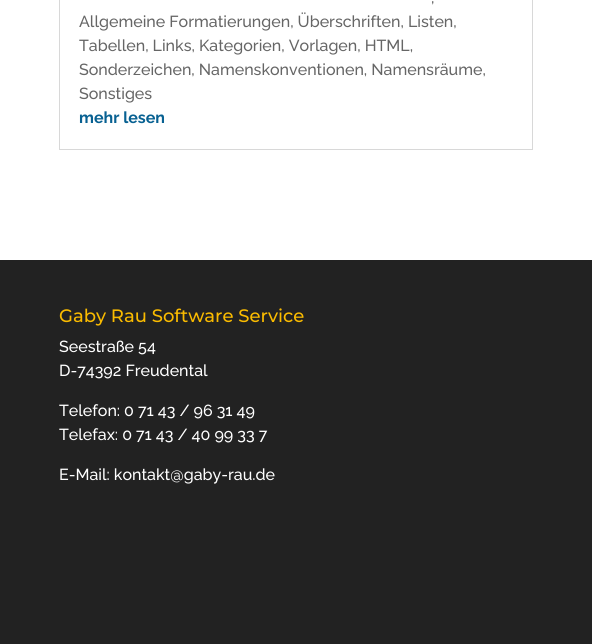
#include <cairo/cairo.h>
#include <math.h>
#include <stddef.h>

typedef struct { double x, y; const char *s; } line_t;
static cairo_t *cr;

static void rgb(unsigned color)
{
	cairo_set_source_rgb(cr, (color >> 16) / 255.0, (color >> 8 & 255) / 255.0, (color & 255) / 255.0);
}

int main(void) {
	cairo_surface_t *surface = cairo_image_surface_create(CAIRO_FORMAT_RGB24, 592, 644);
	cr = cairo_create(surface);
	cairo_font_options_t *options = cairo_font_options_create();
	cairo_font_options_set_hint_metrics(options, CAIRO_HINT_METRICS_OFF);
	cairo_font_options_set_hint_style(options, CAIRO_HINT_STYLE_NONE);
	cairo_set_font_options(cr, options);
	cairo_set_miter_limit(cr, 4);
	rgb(0xffffff);
	cairo_paint(cr);
	cairo_rectangle(cr, 59.5, -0.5, 473, 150);
	rgb(0xd8d8d8);
	cairo_set_line_width(cr, 1);
	cairo_stroke(cr);
	rgb(0x222222);
	cairo_rectangle(cr, 0, 260, 592, 384);
	cairo_fill(cr);
	cairo_select_font_face(cr, "Raleway Medium", CAIRO_FONT_SLANT_NORMAL, CAIRO_FONT_WEIGHT_NORMAL);
	cairo_set_font_size(cr, 16);
	rgb(0x666666);
	{
		static const line_t items[] = {
			{431, 3, ","},
			{79, 27, "Allgemeine Formatierungen, Überschriften, Listen,"},
			{79, 51, "Tabellen, Links, Kategorien, Vorlagen, HTML,"},
			{79, 75, "Sonderzeichen, Namenskonventionen, Namensräume,"},
			{79, 99, "Sonstiges"},
		};
		for (size_t i = 0; i < sizeof items / sizeof *items; i++) {
			cairo_move_to(cr, items[i].x, items[i].y);
			cairo_show_text(cr, items[i].s);
		}
	}
	cairo_select_font_face(cr, "Raleway", CAIRO_FONT_SLANT_NORMAL, CAIRO_FONT_WEIGHT_BOLD);
	rgb(0x086192);
	cairo_move_to(cr, 79, 123);
	cairo_show_text(cr, "mehr lesen");
	cairo_select_font_face(cr, "Montserrat Medium", CAIRO_FONT_SLANT_NORMAL, CAIRO_FONT_WEIGHT_NORMAL);
	cairo_set_font_size(cr, 18);
	rgb(0xfabb00);
	cairo_move_to(cr, 59, 322);
	cairo_show_text(cr, "Gaby Rau Software Service");
	cairo_select_font_face(cr, "Raleway Medium", CAIRO_FONT_SLANT_NORMAL, CAIRO_FONT_WEIGHT_NORMAL);
	cairo_set_font_size(cr, 16);
	rgb(0xffffff);
	{
		static const line_t items[] = {
			{59, 352, "Seestraße 54"},
			{59, 376, "D-74392 Freudental"},
			{59, 416, "Telefon: 0 71 43 / 96 31 49"},
			{59, 440, "Telefax: 0 71 43 / 40 99 33 7"},
			{59, 480, "E-Mail: kontakt@gaby-rau.de"},
		};
		for (size_t i = 0; i < sizeof items / sizeof *items; i++) {
			cairo_move_to(cr, items[i].x, items[i].y);
			cairo_show_text(cr, items[i].s);
		}
	}
	cairo_surface_write_to_png(surface, "page.png");
	cairo_font_options_destroy(options);
	cairo_destroy(cr);
	cairo_surface_destroy(surface);
	return 0;
}
